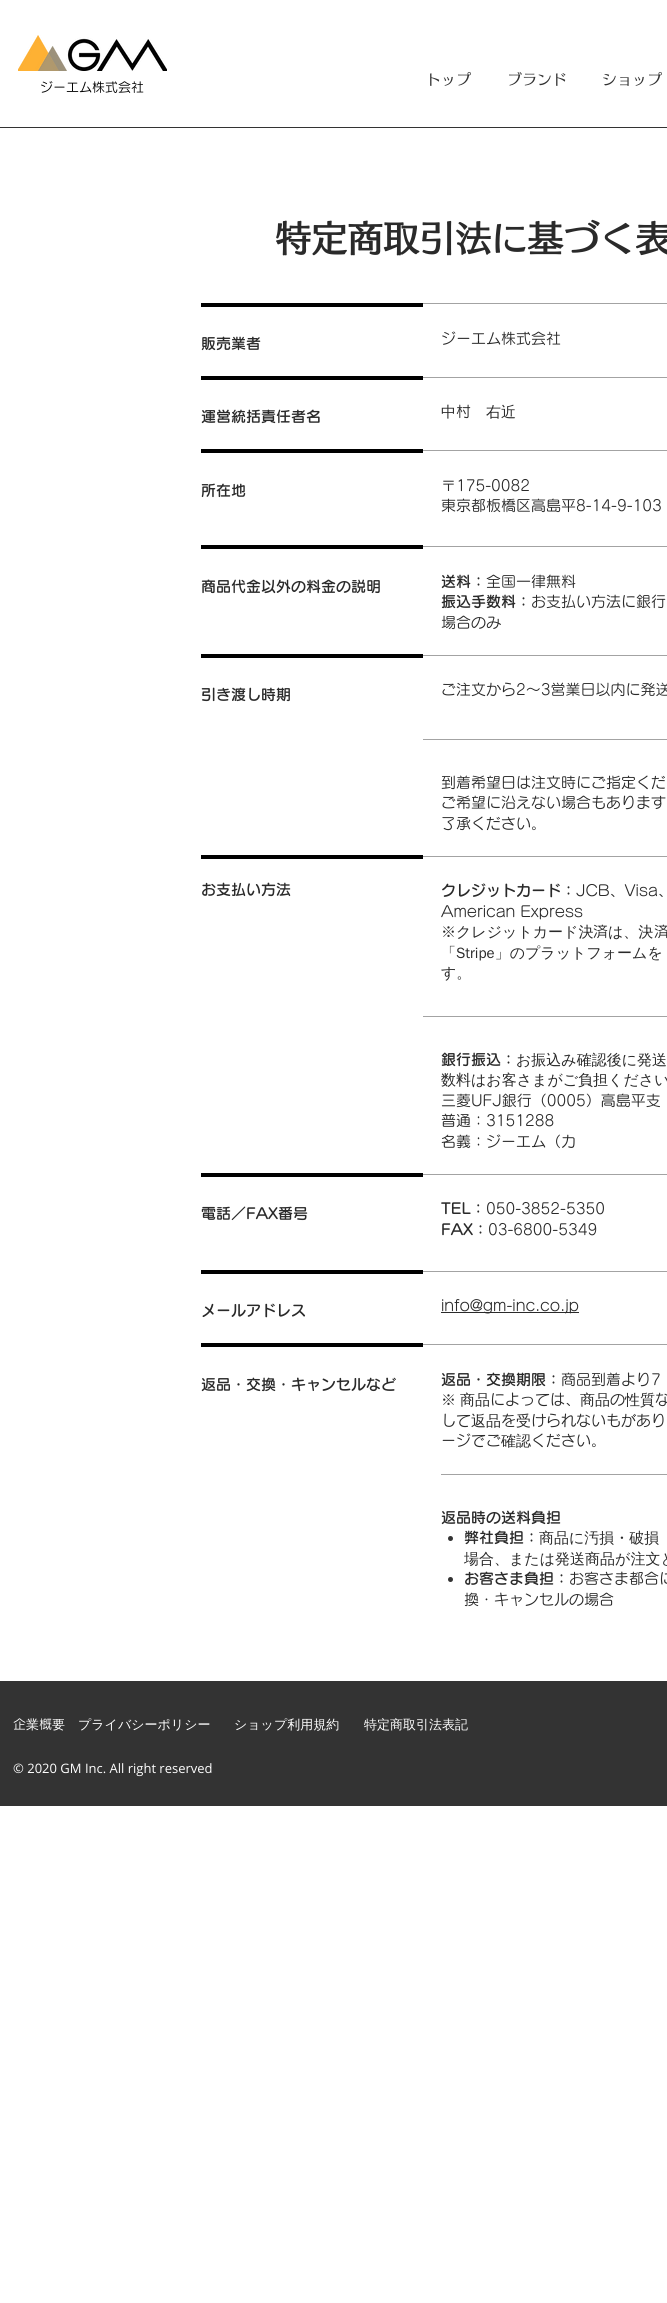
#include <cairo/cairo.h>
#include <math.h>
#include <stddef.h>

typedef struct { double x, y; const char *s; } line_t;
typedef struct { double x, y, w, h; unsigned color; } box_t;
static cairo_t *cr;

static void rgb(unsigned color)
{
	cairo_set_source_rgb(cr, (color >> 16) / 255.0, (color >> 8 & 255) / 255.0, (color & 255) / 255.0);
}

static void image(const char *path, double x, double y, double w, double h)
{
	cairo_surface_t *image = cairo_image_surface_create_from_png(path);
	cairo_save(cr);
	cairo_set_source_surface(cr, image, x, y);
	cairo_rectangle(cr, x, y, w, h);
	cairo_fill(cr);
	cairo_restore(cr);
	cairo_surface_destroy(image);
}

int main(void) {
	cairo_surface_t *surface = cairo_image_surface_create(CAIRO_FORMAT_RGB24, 667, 2303);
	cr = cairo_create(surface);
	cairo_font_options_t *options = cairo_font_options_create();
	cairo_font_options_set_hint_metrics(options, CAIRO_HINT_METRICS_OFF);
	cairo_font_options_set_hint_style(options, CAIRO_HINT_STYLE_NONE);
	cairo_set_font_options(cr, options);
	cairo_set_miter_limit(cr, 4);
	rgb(0xffffff);
	cairo_paint(cr);
	image("img/1.png", 18, 35, 149, 36);
	{
		static const box_t items[] = {
			{0, 127, 667, 1, 0x333333},
			{201, 303, 222, 4, 0x000000},
			{423, 303, 244, 1, 0xa3a3a3},
			{201, 376, 222, 4, 0x000000},
			{423, 377, 244, 1, 0xa3a3a3},
			{201, 449, 222, 4, 0x000000},
			{423, 450, 244, 1, 0xa3a3a3},
			{201, 545, 222, 4, 0x000000},
			{423, 546, 244, 1, 0xa3a3a3},
			{201, 654, 222, 4, 0x000000},
			{423, 655, 244, 1, 0xa3a3a3},
			{423, 739, 244, 1, 0xa3a3a3},
			{201, 855, 222, 4, 0x000000},
			{423, 856, 244, 1, 0xa3a3a3},
			{423, 1016, 244, 1, 0xa3a3a3},
			{201, 1173, 222, 4, 0x000000},
			{423, 1174, 244, 1, 0xa3a3a3},
			{201, 1270, 222, 4, 0x000000},
			{423, 1271, 244, 1, 0xa3a3a3},
			{441, 1312, 138, 1, 0x2a2a2a},
			{201, 1343, 222, 4, 0x000000},
			{423, 1344, 244, 1, 0xa3a3a3},
			{441, 1474, 226, 1, 0xa3a3a3},
		};
		for (size_t i = 0; i < sizeof items / sizeof *items; i++) {
			rgb(items[i].color);
			cairo_rectangle(cr, items[i].x, items[i].y, items[i].w, items[i].h);
			cairo_fill(cr);
		}
	}
	rgb(0x333333);
	cairo_arc(cr, 450.5, 1538.5, 2.5, 0, 2 * M_PI);
	cairo_fill(cr);
	cairo_arc(cr, 450.5, 1579.5, 2.5, 0, 2 * M_PI);
	cairo_fill(cr);
	cairo_rectangle(cr, 0, 1681, 667, 125);
	cairo_fill(cr);
	cairo_select_font_face(cr, "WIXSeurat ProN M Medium", CAIRO_FONT_SLANT_NORMAL, CAIRO_FONT_WEIGHT_NORMAL);
	cairo_set_font_size(cr, 13);
	rgb(0x000000);
	cairo_move_to(cr, 40, 92);
	cairo_show_text(cr, "ジーエム株式会社");
	cairo_select_font_face(cr, "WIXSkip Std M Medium", CAIRO_FONT_SLANT_NORMAL, CAIRO_FONT_WEIGHT_NORMAL);
	cairo_set_font_size(cr, 15);
	rgb(0x333333);
	{
		static const line_t items[] = {
			{426, 85, "トップ"},
			{507, 85, "ブランド"},
			{602, 85, "ショップ"},
		};
		for (size_t i = 0; i < sizeof items / sizeof *items; i++) {
			cairo_move_to(cr, items[i].x, items[i].y);
			cairo_show_text(cr, items[i].s);
		}
	}
	cairo_select_font_face(cr, "WIXSkip Std M", CAIRO_FONT_SLANT_NORMAL, CAIRO_FONT_WEIGHT_BOLD);
	cairo_set_font_size(cr, 36);
	rgb(0x2a2a2a);
	cairo_move_to(cr, 275, 252);
	cairo_show_text(cr, "特定商取引法に基づく表");
	cairo_select_font_face(cr, "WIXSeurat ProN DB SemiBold", CAIRO_FONT_SLANT_NORMAL, CAIRO_FONT_WEIGHT_NORMAL);
	cairo_set_font_size(cr, 15);
	cairo_move_to(cr, 201, 349);
	cairo_show_text(cr, "販売業者");
	cairo_select_font_face(cr, "WIXSeurat ProN M Medium", CAIRO_FONT_SLANT_NORMAL, CAIRO_FONT_WEIGHT_NORMAL);
	cairo_move_to(cr, 441, 344);
	cairo_show_text(cr, "ジーエム株式会社");
	cairo_select_font_face(cr, "WIXSeurat ProN DB SemiBold", CAIRO_FONT_SLANT_NORMAL, CAIRO_FONT_WEIGHT_NORMAL);
	cairo_move_to(cr, 201, 422);
	cairo_show_text(cr, "運営統括責任者名");
	cairo_select_font_face(cr, "WenQuanYi Zen Hei Medium", CAIRO_FONT_SLANT_NORMAL, CAIRO_FONT_WEIGHT_NORMAL);
	cairo_move_to(cr, 441, 417);
	cairo_show_text(cr, "中");
	cairo_select_font_face(cr, "WIXSeurat ProN M Medium", CAIRO_FONT_SLANT_NORMAL, CAIRO_FONT_WEIGHT_NORMAL);
	cairo_move_to(cr, 456, 417);
	cairo_show_text(cr, "村");
	cairo_select_font_face(cr, "WenQuanYi Zen Hei Medium", CAIRO_FONT_SLANT_NORMAL, CAIRO_FONT_WEIGHT_NORMAL);
	cairo_move_to(cr, 486, 417);
	cairo_show_text(cr, "右近");
	cairo_select_font_face(cr, "WIXSeurat ProN DB SemiBold", CAIRO_FONT_SLANT_NORMAL, CAIRO_FONT_WEIGHT_NORMAL);
	cairo_move_to(cr, 201, 496);
	cairo_show_text(cr, "所在地");
	cairo_select_font_face(cr, "WIXSeurat ProN M Medium", CAIRO_FONT_SLANT_NORMAL, CAIRO_FONT_WEIGHT_NORMAL);
	cairo_move_to(cr, 441, 491);
	cairo_show_text(cr, "〒175-0082");
	cairo_move_to(cr, 441, 511);
	cairo_show_text(cr, "東京都板橋区高島平8-14-9-103");
	cairo_select_font_face(cr, "WIXSeurat ProN DB SemiBold", CAIRO_FONT_SLANT_NORMAL, CAIRO_FONT_WEIGHT_NORMAL);
	cairo_move_to(cr, 201, 592);
	cairo_show_text(cr, "商品代金以外の料金の説明");
	cairo_move_to(cr, 441, 587);
	cairo_show_text(cr, "送料：");
	cairo_select_font_face(cr, "WIXSeurat ProN M Medium", CAIRO_FONT_SLANT_NORMAL, CAIRO_FONT_WEIGHT_NORMAL);
	cairo_move_to(cr, 486, 587);
	cairo_show_text(cr, "全国一律無料");
	cairo_select_font_face(cr, "WIXSeurat ProN DB SemiBold", CAIRO_FONT_SLANT_NORMAL, CAIRO_FONT_WEIGHT_NORMAL);
	cairo_move_to(cr, 441, 607);
	cairo_show_text(cr, "振込手数料：");
	cairo_select_font_face(cr, "WIXSeurat ProN M Medium", CAIRO_FONT_SLANT_NORMAL, CAIRO_FONT_WEIGHT_NORMAL);
	cairo_move_to(cr, 531, 607);
	cairo_show_text(cr, "お支払い方法に銀行");
	cairo_move_to(cr, 441, 628);
	cairo_show_text(cr, "場合のみ");
	cairo_select_font_face(cr, "WIXSeurat ProN DB SemiBold", CAIRO_FONT_SLANT_NORMAL, CAIRO_FONT_WEIGHT_NORMAL);
	cairo_move_to(cr, 201, 700);
	cairo_show_text(cr, "引き渡し時期");
	cairo_select_font_face(cr, "WIXSeurat ProN M Medium", CAIRO_FONT_SLANT_NORMAL, CAIRO_FONT_WEIGHT_NORMAL);
	{
		static const line_t items[] = {
			{441, 695, "ご注文から2〜3営業日以内に発送"},
			{441, 788, "到着希望日は注文時にご指定くだ"},
			{441, 808, "ご希望に沿えない場合もあります"},
			{441, 829, "了承ください。"},
		};
		for (size_t i = 0; i < sizeof items / sizeof *items; i++) {
			cairo_move_to(cr, items[i].x, items[i].y);
			cairo_show_text(cr, items[i].s);
		}
	}
	cairo_select_font_face(cr, "WIXSeurat ProN DB SemiBold", CAIRO_FONT_SLANT_NORMAL, CAIRO_FONT_WEIGHT_NORMAL);
	cairo_move_to(cr, 201, 895);
	cairo_show_text(cr, "お支払い方法");
	cairo_move_to(cr, 441, 896);
	cairo_show_text(cr, "クレジットカード：");
	cairo_select_font_face(cr, "WIXSeurat ProN M Medium", CAIRO_FONT_SLANT_NORMAL, CAIRO_FONT_WEIGHT_NORMAL);
	cairo_move_to(cr, 576, 896);
	cairo_show_text(cr, "JCB、Visa、");
	cairo_move_to(cr, 441, 917);
	cairo_show_text(cr, "American Express");
	cairo_select_font_face(cr, "WenQuanYi Zen Hei Medium", CAIRO_FONT_SLANT_NORMAL, CAIRO_FONT_WEIGHT_NORMAL);
	cairo_move_to(cr, 441, 937);
	cairo_show_text(cr, "※クレジットカード決");
	cairo_select_font_face(cr, "WIXSeurat ProN M Medium", CAIRO_FONT_SLANT_NORMAL, CAIRO_FONT_WEIGHT_NORMAL);
	cairo_move_to(cr, 593, 937);
	cairo_show_text(cr, "済");
	cairo_select_font_face(cr, "WenQuanYi Zen Hei Medium", CAIRO_FONT_SLANT_NORMAL, CAIRO_FONT_WEIGHT_NORMAL);
	cairo_move_to(cr, 608, 937);
	cairo_show_text(cr, "は、決");
	cairo_select_font_face(cr, "WIXSeurat ProN M Medium", CAIRO_FONT_SLANT_NORMAL, CAIRO_FONT_WEIGHT_NORMAL);
	cairo_move_to(cr, 654, 937);
	cairo_show_text(cr, "済");
	cairo_select_font_face(cr, "WenQuanYi Zen Hei Medium", CAIRO_FONT_SLANT_NORMAL, CAIRO_FONT_WEIGHT_NORMAL);
	cairo_move_to(cr, 441, 958);
	cairo_show_text(cr, "「Stripe」のプラットフォームを");
	cairo_move_to(cr, 441, 978);
	cairo_show_text(cr, "す。");
	cairo_select_font_face(cr, "WIXSeurat ProN DB SemiBold", CAIRO_FONT_SLANT_NORMAL, CAIRO_FONT_WEIGHT_NORMAL);
	cairo_move_to(cr, 441, 1065);
	cairo_show_text(cr, "銀行振込：");
	cairo_select_font_face(cr, "WenQuanYi Zen Hei Medium", CAIRO_FONT_SLANT_NORMAL, CAIRO_FONT_WEIGHT_NORMAL);
	cairo_move_to(cr, 516, 1065);
	cairo_show_text(cr, "お振込み確認後に発送");
	cairo_move_to(cr, 441, 1085);
	cairo_show_text(cr, "数料はお客さまがご負担ください");
	cairo_select_font_face(cr, "WIXSeurat ProN M Medium", CAIRO_FONT_SLANT_NORMAL, CAIRO_FONT_WEIGHT_NORMAL);
	{
		static const line_t items[] = {
			{441, 1106, "三菱UFJ銀行（0005）高島平支"},
			{441, 1126, "普通：3151288"},
			{441, 1147, "名義：ジーエム（カ"},
		};
		for (size_t i = 0; i < sizeof items / sizeof *items; i++) {
			cairo_move_to(cr, items[i].x, items[i].y);
			cairo_show_text(cr, items[i].s);
		}
	}
	cairo_select_font_face(cr, "WIXSeurat ProN DB SemiBold", CAIRO_FONT_SLANT_NORMAL, CAIRO_FONT_WEIGHT_NORMAL);
	cairo_move_to(cr, 201, 1219);
	cairo_show_text(cr, "電話／FAX番号");
	cairo_move_to(cr, 441, 1214);
	cairo_show_text(cr, "TEL：");
	cairo_select_font_face(cr, "WIXSeurat ProN M Medium", CAIRO_FONT_SLANT_NORMAL, CAIRO_FONT_WEIGHT_NORMAL);
	cairo_move_to(cr, 486, 1214);
	cairo_show_text(cr, "050-3852-5350");
	cairo_select_font_face(cr, "WIXSeurat ProN DB SemiBold", CAIRO_FONT_SLANT_NORMAL, CAIRO_FONT_WEIGHT_NORMAL);
	cairo_move_to(cr, 441, 1235);
	cairo_show_text(cr, "FAX：");
	cairo_select_font_face(cr, "WIXSeurat ProN M Medium", CAIRO_FONT_SLANT_NORMAL, CAIRO_FONT_WEIGHT_NORMAL);
	cairo_move_to(cr, 488, 1235);
	cairo_show_text(cr, "03-6800-5349");
	cairo_select_font_face(cr, "WIXSeurat ProN DB SemiBold", CAIRO_FONT_SLANT_NORMAL, CAIRO_FONT_WEIGHT_NORMAL);
	cairo_move_to(cr, 201, 1316);
	cairo_show_text(cr, "メールアドレス");
	cairo_select_font_face(cr, "WIXSeurat ProN M Medium", CAIRO_FONT_SLANT_NORMAL, CAIRO_FONT_WEIGHT_NORMAL);
	cairo_move_to(cr, 441, 1311);
	cairo_show_text(cr, "info@gm-inc.co.jp");
	cairo_select_font_face(cr, "WIXSeurat ProN DB SemiBold", CAIRO_FONT_SLANT_NORMAL, CAIRO_FONT_WEIGHT_NORMAL);
	cairo_move_to(cr, 201, 1390);
	cairo_show_text(cr, "返品・交換・キャンセルなど");
	cairo_move_to(cr, 441, 1385);
	cairo_show_text(cr, "返品・交換期限：");
	cairo_select_font_face(cr, "WIXSeurat ProN M Medium", CAIRO_FONT_SLANT_NORMAL, CAIRO_FONT_WEIGHT_NORMAL);
	cairo_move_to(cr, 561, 1385);
	cairo_show_text(cr, "商品到着より7");
	cairo_select_font_face(cr, "WenQuanYi Zen Hei Medium", CAIRO_FONT_SLANT_NORMAL, CAIRO_FONT_WEIGHT_NORMAL);
	cairo_move_to(cr, 441, 1405);
	cairo_show_text(cr, "※");
	cairo_move_to(cr, 460, 1405);
	cairo_show_text(cr, "商品");
	cairo_select_font_face(cr, "WIXSeurat ProN M Medium", CAIRO_FONT_SLANT_NORMAL, CAIRO_FONT_WEIGHT_NORMAL);
	cairo_move_to(cr, 490, 1405);
	cairo_show_text(cr, "によっては、");
	cairo_select_font_face(cr, "WenQuanYi Zen Hei Medium", CAIRO_FONT_SLANT_NORMAL, CAIRO_FONT_WEIGHT_NORMAL);
	cairo_move_to(cr, 580, 1405);
	cairo_show_text(cr, "商品");
	cairo_select_font_face(cr, "WIXSeurat ProN M Medium", CAIRO_FONT_SLANT_NORMAL, CAIRO_FONT_WEIGHT_NORMAL);
	cairo_move_to(cr, 610, 1405);
	cairo_show_text(cr, "の");
	cairo_select_font_face(cr, "WenQuanYi Zen Hei Medium", CAIRO_FONT_SLANT_NORMAL, CAIRO_FONT_WEIGHT_NORMAL);
	cairo_move_to(cr, 625, 1405);
	cairo_show_text(cr, "性質");
	cairo_select_font_face(cr, "WIXSeurat ProN M Medium", CAIRO_FONT_SLANT_NORMAL, CAIRO_FONT_WEIGHT_NORMAL);
	cairo_move_to(cr, 655, 1405);
	cairo_show_text(cr, "な");
	cairo_move_to(cr, 441, 1426);
	cairo_show_text(cr, "して");
	cairo_select_font_face(cr, "WenQuanYi Zen Hei Medium", CAIRO_FONT_SLANT_NORMAL, CAIRO_FONT_WEIGHT_NORMAL);
	cairo_move_to(cr, 471, 1426);
	cairo_show_text(cr, "返品");
	cairo_select_font_face(cr, "WIXSeurat ProN M Medium", CAIRO_FONT_SLANT_NORMAL, CAIRO_FONT_WEIGHT_NORMAL);
	cairo_move_to(cr, 501, 1426);
	cairo_show_text(cr, "を");
	cairo_select_font_face(cr, "WenQuanYi Zen Hei Medium", CAIRO_FONT_SLANT_NORMAL, CAIRO_FONT_WEIGHT_NORMAL);
	cairo_move_to(cr, 516, 1426);
	cairo_show_text(cr, "受");
	cairo_select_font_face(cr, "WIXSeurat ProN M Medium", CAIRO_FONT_SLANT_NORMAL, CAIRO_FONT_WEIGHT_NORMAL);
	cairo_move_to(cr, 531, 1426);
	cairo_show_text(cr, "けられないもがあり");
	cairo_move_to(cr, 441, 1446);
	cairo_show_text(cr, "ージでご");
	cairo_select_font_face(cr, "WenQuanYi Zen Hei Medium", CAIRO_FONT_SLANT_NORMAL, CAIRO_FONT_WEIGHT_NORMAL);
	cairo_move_to(cr, 501, 1446);
	cairo_show_text(cr, "確認");
	cairo_select_font_face(cr, "WIXSeurat ProN M Medium", CAIRO_FONT_SLANT_NORMAL, CAIRO_FONT_WEIGHT_NORMAL);
	cairo_move_to(cr, 531, 1446);
	cairo_show_text(cr, "ください。");
	cairo_select_font_face(cr, "WIXSeurat ProN DB SemiBold", CAIRO_FONT_SLANT_NORMAL, CAIRO_FONT_WEIGHT_NORMAL);
	cairo_move_to(cr, 441, 1523);
	cairo_show_text(cr, "返品時の送料負担");
	cairo_move_to(cr, 464, 1543);
	cairo_show_text(cr, "弊社負担：");
	cairo_select_font_face(cr, "WenQuanYi Zen Hei Medium", CAIRO_FONT_SLANT_NORMAL, CAIRO_FONT_WEIGHT_NORMAL);
	cairo_move_to(cr, 539, 1543);
	cairo_show_text(cr, "商品に汚損・破損");
	cairo_move_to(cr, 464, 1564);
	cairo_show_text(cr, "場合、または発送商品が注⽂と");
	cairo_select_font_face(cr, "WIXSeurat ProN DB SemiBold", CAIRO_FONT_SLANT_NORMAL, CAIRO_FONT_WEIGHT_NORMAL);
	cairo_move_to(cr, 464, 1584);
	cairo_show_text(cr, "お客さま負担：");
	cairo_select_font_face(cr, "WIXSeurat ProN M Medium", CAIRO_FONT_SLANT_NORMAL, CAIRO_FONT_WEIGHT_NORMAL);
	cairo_move_to(cr, 569, 1584);
	cairo_show_text(cr, "お客さま都合に");
	cairo_move_to(cr, 464, 1605);
	cairo_show_text(cr, "換・キャンセルの場合");
	cairo_set_font_size(cr, 13);
	rgb(0xffffff);
	cairo_move_to(cr, 13, 1729);
	cairo_show_text(cr, "企");
	cairo_select_font_face(cr, "WenQuanYi Zen Hei Medium", CAIRO_FONT_SLANT_NORMAL, CAIRO_FONT_WEIGHT_NORMAL);
	cairo_move_to(cr, 26, 1729);
	cairo_show_text(cr, "業");
	cairo_select_font_face(cr, "WIXSeurat ProN M Medium", CAIRO_FONT_SLANT_NORMAL, CAIRO_FONT_WEIGHT_NORMAL);
	cairo_move_to(cr, 39, 1729);
	cairo_show_text(cr, "概");
	cairo_select_font_face(cr, "WenQuanYi Zen Hei Medium", CAIRO_FONT_SLANT_NORMAL, CAIRO_FONT_WEIGHT_NORMAL);
	{
		static const line_t items[] = {
			{52, 1729, "要"},
			{78, 1729, "プライバシーポリシー"},
			{234, 1729, "ショップ利用規約"},
			{364, 1729, "特定商取引法表記"},
		};
		for (size_t i = 0; i < sizeof items / sizeof *items; i++) {
			cairo_move_to(cr, items[i].x, items[i].y);
			cairo_show_text(cr, items[i].s);
		}
	}
	cairo_select_font_face(cr, "Open Sans", CAIRO_FONT_SLANT_NORMAL, CAIRO_FONT_WEIGHT_NORMAL);
	cairo_move_to(cr, 13, 1773);
	cairo_show_text(cr, "© 2020 GM Inc. All right reserved");
	cairo_surface_write_to_png(surface, "page.png");
	cairo_font_options_destroy(options);
	cairo_destroy(cr);
	cairo_surface_destroy(surface);
	return 0;
}
